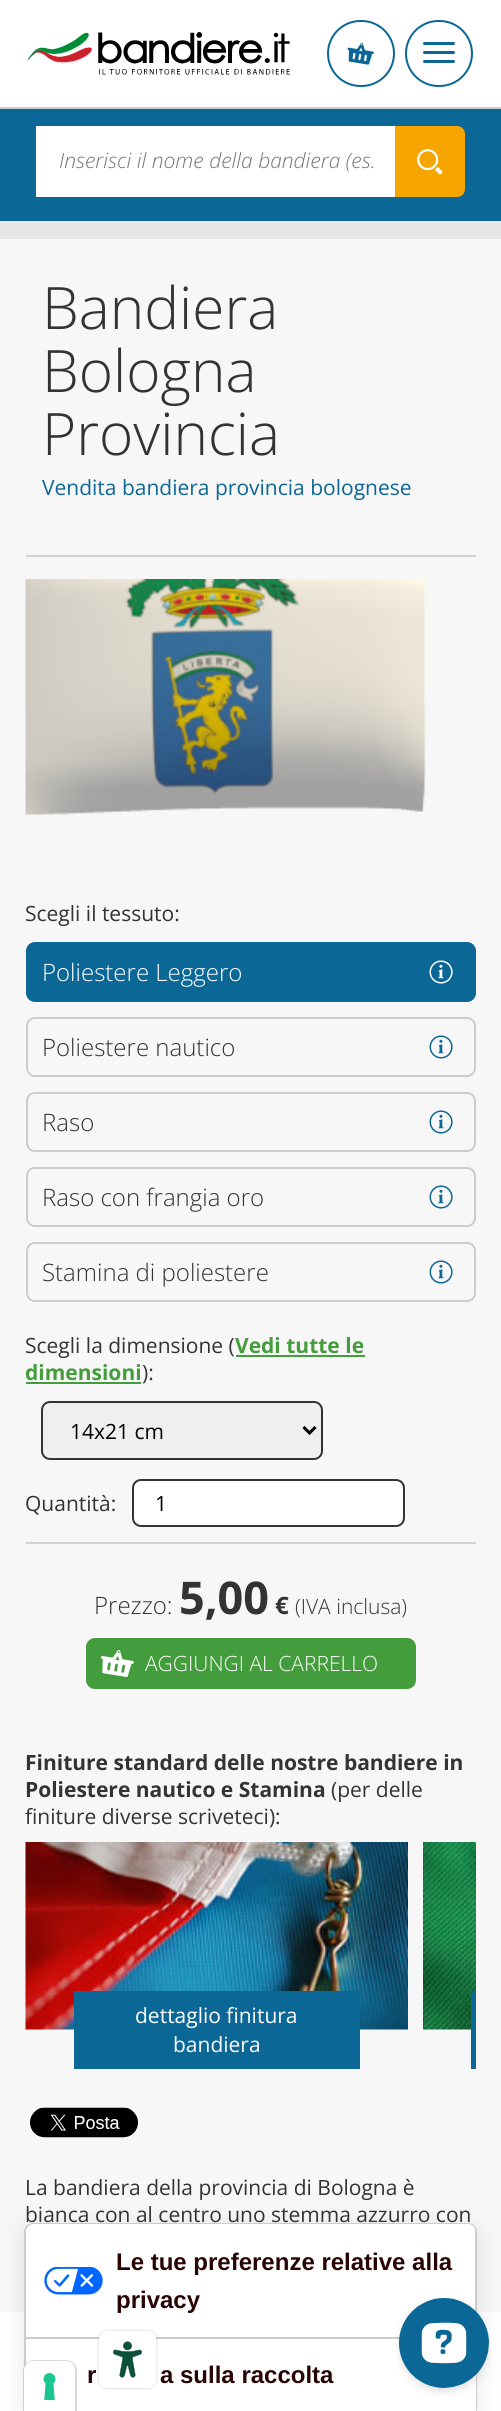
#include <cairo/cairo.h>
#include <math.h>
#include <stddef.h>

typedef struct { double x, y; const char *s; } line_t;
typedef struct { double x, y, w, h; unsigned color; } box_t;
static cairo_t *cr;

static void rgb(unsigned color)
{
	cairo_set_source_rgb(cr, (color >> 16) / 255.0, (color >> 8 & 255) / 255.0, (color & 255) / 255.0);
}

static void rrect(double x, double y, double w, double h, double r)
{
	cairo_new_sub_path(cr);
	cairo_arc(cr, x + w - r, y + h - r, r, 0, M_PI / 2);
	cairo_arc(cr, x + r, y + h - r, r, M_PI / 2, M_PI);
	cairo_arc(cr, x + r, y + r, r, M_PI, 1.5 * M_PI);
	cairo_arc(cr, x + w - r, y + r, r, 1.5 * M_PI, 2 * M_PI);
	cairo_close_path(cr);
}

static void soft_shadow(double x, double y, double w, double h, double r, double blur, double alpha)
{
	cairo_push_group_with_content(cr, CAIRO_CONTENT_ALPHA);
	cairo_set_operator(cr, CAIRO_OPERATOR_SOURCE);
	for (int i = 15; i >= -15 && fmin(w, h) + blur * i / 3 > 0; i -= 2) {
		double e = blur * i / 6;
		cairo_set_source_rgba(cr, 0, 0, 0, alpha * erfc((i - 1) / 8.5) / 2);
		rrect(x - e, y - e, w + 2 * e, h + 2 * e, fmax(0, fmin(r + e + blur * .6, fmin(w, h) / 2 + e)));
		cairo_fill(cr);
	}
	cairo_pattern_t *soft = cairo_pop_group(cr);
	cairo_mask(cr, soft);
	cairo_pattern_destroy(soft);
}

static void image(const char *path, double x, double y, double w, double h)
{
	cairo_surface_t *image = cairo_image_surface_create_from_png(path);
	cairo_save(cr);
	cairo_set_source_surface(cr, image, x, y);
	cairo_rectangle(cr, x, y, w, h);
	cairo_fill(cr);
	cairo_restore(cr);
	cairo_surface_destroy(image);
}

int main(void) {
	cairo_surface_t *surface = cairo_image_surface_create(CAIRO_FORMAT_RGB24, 501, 2411);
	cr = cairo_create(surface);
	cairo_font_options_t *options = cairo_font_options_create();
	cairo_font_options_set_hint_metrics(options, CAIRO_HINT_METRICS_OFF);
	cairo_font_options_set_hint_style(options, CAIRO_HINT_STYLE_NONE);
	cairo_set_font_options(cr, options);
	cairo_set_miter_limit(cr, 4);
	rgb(0xffffff);
	cairo_paint(cr);
	rgb(0xcccccc);
	cairo_rectangle(cr, 0, 107, 501, 2);
	cairo_fill(cr);
	image("img/1.png", 27, 32, 263, 43);
	rrect(328, 21, 66, 65, 32.5);
	rgb(0x0b6796);
	cairo_stroke(cr);
	image("img/2.png", 347, 42, 27, 23);
	rrect(406, 21, 66, 65, 32.5);
	cairo_stroke(cr);
	rrect(423, 42, 32, 3, 1.5);
	cairo_fill(cr);
	rrect(423, 51, 32, 3, 1.5);
	cairo_fill(cr);
	rrect(423, 60, 32, 3, 1.5);
	cairo_fill(cr);
	cairo_rectangle(cr, 0, 109, 501, 112);
	cairo_fill(cr);
	rgb(0xffffff);
	cairo_rectangle(cr, 36, 126, 359, 71);
	cairo_fill(cr);
	rgb(0xf7a500);
	cairo_new_path(cr);
	cairo_move_to(cr, 395, 126);
	cairo_line_to(cr, 457, 126);
	cairo_curve_to(cr, 461.5, 126, 465, 129.5, 465, 134);
	cairo_line_to(cr, 465, 189);
	cairo_curve_to(cr, 465, 193.5, 461.5, 197, 457, 197);
	cairo_line_to(cr, 395, 197);
	cairo_close_path(cr);
	cairo_fill(cr);
	image("img/3.png", 417, 149, 26, 26);
	{
		static const box_t items[] = {
			{0, 221, 501, 18, 0xe6e6e6},
			{0, 239, 501, 2073, 0xf7f7f7},
			{26, 555, 450, 2, 0xd3d3d3},
		};
		for (size_t i = 0; i < sizeof items / sizeof *items; i++) {
			rgb(items[i].color);
			cairo_rectangle(cr, items[i].x, items[i].y, items[i].w, items[i].h);
			cairo_fill(cr);
		}
	}
	image("img/4.png", 25, 579, 401, 236);
	rgb(0x0b6796);
	rrect(27, 943, 448, 58, 8);
	cairo_fill_preserve(cr);
	cairo_stroke(cr);
	image("img/5.png", 429, 960, 24, 24);
	rrect(27, 1018, 448, 58, 8);
	rgb(0xcccccc);
	cairo_stroke(cr);
	image("img/6.png", 429, 1035, 24, 24);
	rrect(27, 1093, 448, 58, 8);
	cairo_stroke(cr);
	image("img/6.png", 429, 1110, 24, 24);
	rrect(27, 1168, 448, 58, 8);
	cairo_stroke(cr);
	image("img/6.png", 429, 1185, 24, 24);
	rrect(27, 1243, 448, 58, 8);
	cairo_stroke(cr);
	image("img/6.png", 429, 1260, 24, 24);
	rgb(0x449d3c);
	cairo_rectangle(cr, 236, 1355, 129, 2);
	cairo_fill(cr);
	cairo_rectangle(cr, 26, 1382, 115, 2);
	cairo_fill(cr);
	rgb(0xefefef);
	rrect(42, 1402, 280, 57, 8);
	cairo_fill_preserve(cr);
	rgb(0x333333);
	cairo_stroke(cr);
	cairo_new_path(cr);
	cairo_move_to(cr, 303.5, 1427);
	cairo_line_to(cr, 309.5, 1433);
	cairo_line_to(cr, 315.5, 1427);
	rgb(0x000000);
	cairo_set_line_width(cr, 3);
	cairo_stroke(cr);
	rgb(0xffffff);
	rrect(133, 1480, 271, 46, 8);
	cairo_fill_preserve(cr);
	rgb(0x333333);
	cairo_set_line_width(cr, 2);
	cairo_stroke(cr);
	rgb(0xd3d3d3);
	cairo_rectangle(cr, 26, 1542, 450, 2);
	cairo_fill(cr);
	rgb(0x449d3c);
	rrect(86, 1638, 330, 51, 9);
	cairo_fill(cr);
	image("img/7.png", 101, 1650, 33, 27);
	image("img/8.png", 25, 1842, 383, 188);
	rgb(0x0b6796);
	cairo_rectangle(cr, 74, 1991, 286, 78);
	cairo_fill(cr);
	image("img/9.png", 423, 1842, 53, 188);
	cairo_rectangle(cr, 471, 1991, 5, 78);
	cairo_fill(cr);
	image("img/10.png", 30, 2107, 108, 31);
	rgb(0x000000);
	soft_shadow(24, 2229, 453, 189, 9, 12, 0.1);
	rgb(0xffffff);
	cairo_new_path(cr);
	cairo_move_to(cr, 33, 2223);
	cairo_line_to(cr, 468, 2223);
	cairo_curve_to(cr, 473, 2223, 477, 2227, 477, 2232);
	cairo_line_to(cr, 477, 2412);
	cairo_line_to(cr, 24, 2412);
	cairo_line_to(cr, 24, 2232);
	cairo_curve_to(cr, 24, 2227, 28, 2223, 33, 2223);
	cairo_close_path(cr);
	cairo_fill(cr);
	cairo_set_source_rgba(cr, 0, 0, 0, 0.2);
	cairo_set_fill_rule(cr, CAIRO_FILL_RULE_EVEN_ODD);
	cairo_new_path(cr);
	cairo_move_to(cr, 33, 2223);
	cairo_line_to(cr, 468, 2223);
	cairo_curve_to(cr, 473, 2223, 477, 2227, 477, 2232);
	cairo_line_to(cr, 477, 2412);
	cairo_line_to(cr, 24, 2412);
	cairo_line_to(cr, 24, 2232);
	cairo_curve_to(cr, 24, 2227, 28, 2223, 33, 2223);
	cairo_close_path(cr);
	cairo_move_to(cr, 33, 2224);
	cairo_line_to(cr, 468, 2224);
	cairo_curve_to(cr, 472, 2224, 476, 2228, 476, 2232);
	cairo_line_to(cr, 476, 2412);
	cairo_line_to(cr, 26, 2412);
	cairo_line_to(cr, 26, 2232);
	cairo_curve_to(cr, 26, 2228, 29, 2224, 33, 2224);
	cairo_close_path(cr);
	cairo_fill(cr);
	cairo_set_fill_rule(cr, CAIRO_FILL_RULE_WINDING);
	cairo_new_path(cr);
	cairo_move_to(cr, 476, 2339);
	cairo_line_to(cr, 26, 2339);
	cairo_line_to(cr, 26, 2337);
	cairo_line_to(cr, 475, 2337);
	cairo_line_to(cr, 475, 2229);
	cairo_curve_to(cr, 476, 2230, 476, 2232, 476, 2233);
	cairo_close_path(cr);
	cairo_fill(cr);
	image("img/11.png", 44, 2267, 59, 28);
	cairo_new_path(cr);
	cairo_move_to(cr, 34, 2361);
	cairo_line_to(cr, 66, 2361);
	cairo_curve_to(cr, 71.5, 2361, 76, 2365.5, 76, 2371);
	cairo_line_to(cr, 76, 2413);
	cairo_line_to(cr, 24, 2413);
	cairo_line_to(cr, 24, 2371);
	cairo_curve_to(cr, 24, 2365.5, 28.5, 2361, 34, 2361);
	cairo_close_path(cr);
	cairo_set_source_rgba(cr, 0, 0, 0, 0.15);
	cairo_stroke(cr);
	rgb(0xffffff);
	cairo_new_path(cr);
	cairo_move_to(cr, 33, 2361);
	cairo_line_to(cr, 66, 2361);
	cairo_curve_to(cr, 71, 2361, 75, 2365, 75, 2370);
	cairo_line_to(cr, 75, 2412);
	cairo_line_to(cr, 24, 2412);
	cairo_line_to(cr, 24, 2370);
	cairo_curve_to(cr, 24, 2365, 28, 2361, 33, 2361);
	cairo_close_path(cr);
	cairo_fill(cr);
	image("img/12.png", 43, 2373, 13, 27);
	rgb(0x000000);
	soft_shadow(99, 2331, 57, 57, 8, 1.5, 0.2);
	rgb(0xffffff);
	rrect(99, 2331, 57, 57, 8);
	cairo_fill(cr);
	image("img/13.png", 113, 2341, 29, 37);
	image("img/14.png", 396, 2298, 96, 98);
	cairo_select_font_face(cr, "Open Sans Light", CAIRO_FONT_SLANT_ITALIC, CAIRO_FONT_WEIGHT_NORMAL);
	cairo_set_font_size(cr, 21);
	rgb(0x757575);
	cairo_move_to(cr, 59, 168);
	cairo_show_text(cr, "Inserisci il nome della bandiera (es.");
	cairo_select_font_face(cr, "Open Sans Light", CAIRO_FONT_SLANT_NORMAL, CAIRO_FONT_WEIGHT_NORMAL);
	cairo_set_font_size(cr, 58.5);
	rgb(0x333333);
	{
		static const line_t items[] = {
			{42, 329, "Bandiera"},
			{42, 392, "Bologna"},
			{42, 455, "Provincia"},
		};
		for (size_t i = 0; i < sizeof items / sizeof *items; i++) {
			cairo_move_to(cr, items[i].x, items[i].y);
			cairo_show_text(cr, items[i].s);
		}
	}
	cairo_select_font_face(cr, "Open Sans", CAIRO_FONT_SLANT_NORMAL, CAIRO_FONT_WEIGHT_NORMAL);
	cairo_set_font_size(cr, 21);
	rgb(0x0b6796);
	cairo_move_to(cr, 42, 495);
	cairo_show_text(cr, "Vendita bandiera provincia bolognese");
	rgb(0x333333);
	cairo_move_to(cr, 25, 921);
	cairo_show_text(cr, "Scegli il tessuto:");
	cairo_select_font_face(cr, "Open Sans Light", CAIRO_FONT_SLANT_NORMAL, CAIRO_FONT_WEIGHT_NORMAL);
	cairo_set_font_size(cr, 24);
	rgb(0xffffff);
	cairo_move_to(cr, 42, 981);
	cairo_show_text(cr, "Poliestere Leggero");
	rgb(0x333333);
	{
		static const line_t items[] = {
			{42, 1056, "Poliestere nautico"},
			{42, 1131, "Raso"},
			{42, 1206, "Raso con frangia oro"},
			{42, 1281, "Stamina di poliestere"},
		};
		for (size_t i = 0; i < sizeof items / sizeof *items; i++) {
			cairo_move_to(cr, items[i].x, items[i].y);
			cairo_show_text(cr, items[i].s);
		}
	}
	cairo_select_font_face(cr, "Open Sans", CAIRO_FONT_SLANT_NORMAL, CAIRO_FONT_WEIGHT_NORMAL);
	cairo_set_font_size(cr, 21);
	cairo_move_to(cr, 25, 1353);
	cairo_show_text(cr, "Scegli la dimensione (");
	cairo_select_font_face(cr, "Open Sans", CAIRO_FONT_SLANT_NORMAL, CAIRO_FONT_WEIGHT_BOLD);
	rgb(0x449d3c);
	cairo_move_to(cr, 235, 1353);
	cairo_show_text(cr, "Vedi tutte le");
	cairo_move_to(cr, 25, 1380);
	cairo_show_text(cr, "dimensioni");
	cairo_select_font_face(cr, "Open Sans", CAIRO_FONT_SLANT_NORMAL, CAIRO_FONT_WEIGHT_NORMAL);
	rgb(0x333333);
	cairo_move_to(cr, 142, 1380);
	cairo_show_text(cr, "):");
	rgb(0x000000);
	cairo_move_to(cr, 70, 1439);
	cairo_show_text(cr, "14x21 cm");
	rgb(0x333333);
	cairo_move_to(cr, 25, 1511);
	cairo_show_text(cr, "Quantità:");
	rgb(0x000000);
	cairo_move_to(cr, 155, 1511);
	cairo_show_text(cr, "1");
	cairo_select_font_face(cr, "Open Sans Light", CAIRO_FONT_SLANT_NORMAL, CAIRO_FONT_WEIGHT_NORMAL);
	cairo_set_font_size(cr, 24);
	rgb(0x333333);
	cairo_move_to(cr, 94, 1614);
	cairo_show_text(cr, "Prezzo:");
	cairo_select_font_face(cr, "Open Sans", CAIRO_FONT_SLANT_NORMAL, CAIRO_FONT_WEIGHT_BOLD);
	cairo_set_font_size(cr, 45);
	cairo_move_to(cr, 179, 1614);
	cairo_show_text(cr, "5,00");
	cairo_set_font_size(cr, 24);
	cairo_move_to(cr, 275, 1614);
	cairo_show_text(cr, "€");
	cairo_select_font_face(cr, "Open Sans Light", CAIRO_FONT_SLANT_NORMAL, CAIRO_FONT_WEIGHT_NORMAL);
	cairo_set_font_size(cr, 21);
	cairo_move_to(cr, 295, 1614);
	cairo_show_text(cr, "(IVA inclusa)");
	rgb(0xffffff);
	cairo_move_to(cr, 145, 1671);
	cairo_show_text(cr, "AGGIUNGI AL CARRELLO");
	cairo_select_font_face(cr, "Open Sans", CAIRO_FONT_SLANT_NORMAL, CAIRO_FONT_WEIGHT_BOLD);
	rgb(0x333333);
	cairo_move_to(cr, 25, 1770);
	cairo_show_text(cr, "Finiture standard delle nostre bandiere in");
	cairo_move_to(cr, 25, 1797);
	cairo_show_text(cr, "Poliestere nautico e Stamina");
	cairo_select_font_face(cr, "Open Sans", CAIRO_FONT_SLANT_NORMAL, CAIRO_FONT_WEIGHT_NORMAL);
	cairo_move_to(cr, 331, 1797);
	cairo_show_text(cr, "(per delle");
	cairo_move_to(cr, 25, 1824);
	cairo_show_text(cr, "finiture diverse scriveteci):");
	rgb(0xffffff);
	cairo_move_to(cr, 135, 2023);
	cairo_show_text(cr, "dettaglio finitura");
	cairo_move_to(cr, 173, 2052);
	cairo_show_text(cr, "bandiera");
	rgb(0x333333);
	cairo_move_to(cr, 25, 2195);
	cairo_show_text(cr, "La bandiera della provincia di Bologna è");
	cairo_move_to(cr, 25, 2222);
	cairo_show_text(cr, "bianca con al centro uno stemma azzurro con");
	cairo_select_font_face(cr, "Liberation Sans", CAIRO_FONT_SLANT_NORMAL, CAIRO_FONT_WEIGHT_BOLD);
	cairo_set_font_size(cr, 24);
	rgb(0x280404);
	{
		static const line_t items[] = {
			{116, 2270, "Le tue preferenze relative alla"},
			{116, 2308, "privacy"},
			{87, 2383, "r"},
			{160, 2383, "a sulla raccolta"},
		};
		for (size_t i = 0; i < sizeof items / sizeof *items; i++) {
			cairo_move_to(cr, items[i].x, items[i].y);
			cairo_show_text(cr, items[i].s);
		}
	}
	cairo_surface_write_to_png(surface, "page.png");
	cairo_font_options_destroy(options);
	cairo_destroy(cr);
	cairo_surface_destroy(surface);
	return 0;
}
